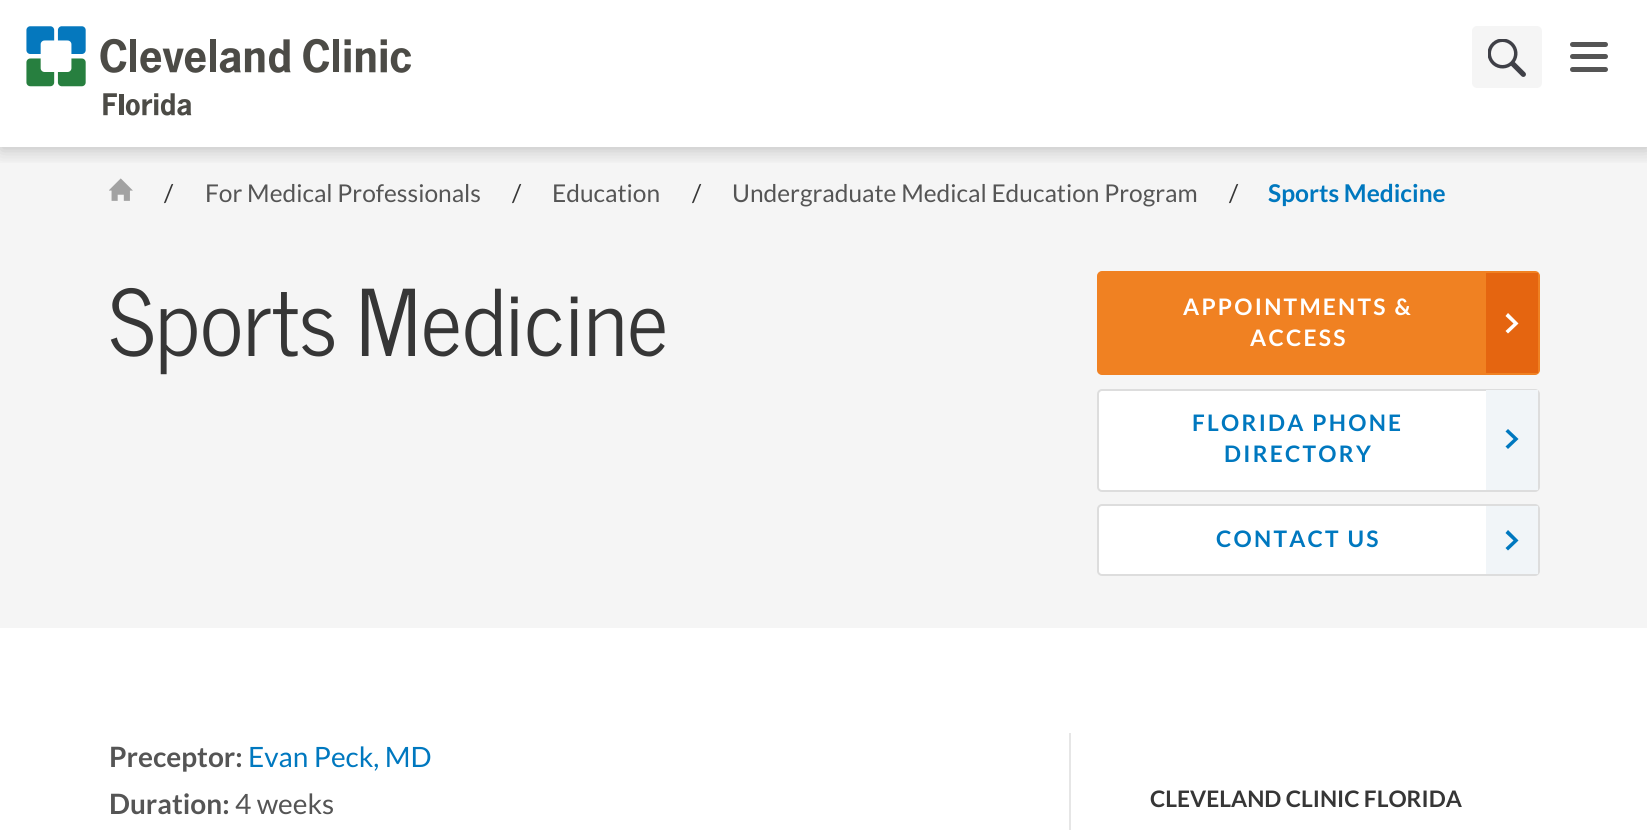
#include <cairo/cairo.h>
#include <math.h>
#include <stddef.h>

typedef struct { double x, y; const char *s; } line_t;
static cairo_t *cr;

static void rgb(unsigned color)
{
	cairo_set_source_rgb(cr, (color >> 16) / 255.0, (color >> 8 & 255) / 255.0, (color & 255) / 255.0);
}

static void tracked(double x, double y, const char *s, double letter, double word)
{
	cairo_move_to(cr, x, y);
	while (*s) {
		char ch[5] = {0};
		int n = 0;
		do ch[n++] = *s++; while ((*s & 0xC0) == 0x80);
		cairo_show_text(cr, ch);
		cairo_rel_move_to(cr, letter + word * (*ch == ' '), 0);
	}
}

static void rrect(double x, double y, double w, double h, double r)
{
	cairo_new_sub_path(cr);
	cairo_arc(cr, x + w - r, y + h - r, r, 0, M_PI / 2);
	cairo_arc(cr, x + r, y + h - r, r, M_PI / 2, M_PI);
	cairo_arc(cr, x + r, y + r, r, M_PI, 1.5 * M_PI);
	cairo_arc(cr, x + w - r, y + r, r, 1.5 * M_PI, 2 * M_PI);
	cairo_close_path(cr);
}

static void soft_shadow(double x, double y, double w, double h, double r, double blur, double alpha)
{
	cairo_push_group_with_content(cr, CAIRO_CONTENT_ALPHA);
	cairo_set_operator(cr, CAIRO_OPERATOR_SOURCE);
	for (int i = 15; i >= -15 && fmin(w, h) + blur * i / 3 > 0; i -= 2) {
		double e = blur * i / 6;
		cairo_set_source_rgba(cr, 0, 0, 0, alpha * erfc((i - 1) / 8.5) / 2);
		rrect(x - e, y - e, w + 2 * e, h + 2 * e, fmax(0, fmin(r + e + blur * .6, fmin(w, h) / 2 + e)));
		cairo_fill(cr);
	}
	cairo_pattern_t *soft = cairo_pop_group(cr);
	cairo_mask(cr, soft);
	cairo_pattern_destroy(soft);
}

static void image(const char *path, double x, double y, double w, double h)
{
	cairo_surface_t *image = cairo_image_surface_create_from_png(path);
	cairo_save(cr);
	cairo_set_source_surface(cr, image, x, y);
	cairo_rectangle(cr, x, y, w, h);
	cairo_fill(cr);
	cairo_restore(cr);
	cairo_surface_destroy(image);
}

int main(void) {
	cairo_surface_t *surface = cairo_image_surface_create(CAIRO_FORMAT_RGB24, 1647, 830);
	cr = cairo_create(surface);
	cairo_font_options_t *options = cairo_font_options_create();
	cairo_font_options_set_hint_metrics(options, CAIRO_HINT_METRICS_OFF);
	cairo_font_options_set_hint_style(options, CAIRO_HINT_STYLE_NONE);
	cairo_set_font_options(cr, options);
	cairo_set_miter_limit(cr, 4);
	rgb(0xffffff);
	cairo_paint(cr);
	rgb(0xf5f5f5);
	cairo_rectangle(cr, 0, 147, 1647, 481);
	cairo_fill(cr);
	image("img/3.png", 109, 178, 24, 23);
	cairo_save(cr);
	cairo_rectangle(cr, 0, 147, 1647, 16);
	cairo_clip(cr);
	rgb(0x000000);
	soft_shadow(0, 4, 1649, 147, 0, 9, 0.2);
	cairo_restore(cr);
	image("img/1.png", 26, 26, 385, 90);
	rrect(1472, 26, 70, 62, 5);
	cairo_fill(cr);
	image("img/2.png", 1488, 39, 38, 38);
	rgb(0x555555);
	rrect(1570, 42, 38, 5, 2.5);
	cairo_fill(cr);
	rrect(1570, 54, 38, 5, 2.5);
	cairo_fill(cr);
	rrect(1570, 67, 38, 5, 2.5);
	cairo_fill(cr);
	rgb(0xf08122);
	rrect(1098, 272, 441, 102, 4);
	cairo_fill_preserve(cr);
	cairo_stroke(cr);
	rgb(0xe56510);
	cairo_rectangle(cr, 1486, 273, 52, 100);
	cairo_fill(cr);
	rgb(0xffffff);
	cairo_set_fill_rule(cr, CAIRO_FILL_RULE_EVEN_ODD);
	cairo_new_path(cr);
	cairo_move_to(cr, 1505.5, 316);
	cairo_line_to(cr, 1508, 313);
	cairo_line_to(cr, 1518.5, 323.5);
	cairo_line_to(cr, 1508, 333.5);
	cairo_line_to(cr, 1505.5, 331);
	cairo_line_to(cr, 1513.5, 323.5);
	cairo_close_path(cr);
	cairo_fill(cr);
	rrect(1098, 390, 441, 101, 4);
	cairo_fill_preserve(cr);
	rgb(0xdddddd);
	cairo_stroke(cr);
	rgb(0xf1f5f8);
	cairo_rectangle(cr, 1486, 390, 52, 100);
	cairo_fill(cr);
	rgb(0x0078bf);
	cairo_new_path(cr);
	cairo_move_to(cr, 1505.5, 431.5);
	cairo_line_to(cr, 1508, 429);
	cairo_line_to(cr, 1518.5, 439);
	cairo_line_to(cr, 1508, 449);
	cairo_line_to(cr, 1505.5, 446.5);
	cairo_line_to(cr, 1513.5, 439);
	cairo_close_path(cr);
	cairo_fill(cr);
	rgb(0xffffff);
	rrect(1098, 505, 441, 70, 4);
	cairo_fill_preserve(cr);
	rgb(0xdddddd);
	cairo_stroke(cr);
	rgb(0xf1f5f8);
	cairo_rectangle(cr, 1486, 506, 52, 68);
	cairo_fill(cr);
	rgb(0x0078bf);
	cairo_new_path(cr);
	cairo_move_to(cr, 1505.5, 533);
	cairo_line_to(cr, 1508, 530);
	cairo_line_to(cr, 1518.5, 540.5);
	cairo_line_to(cr, 1508, 550.5);
	cairo_line_to(cr, 1505.5, 548);
	cairo_line_to(cr, 1513.5, 540.5);
	cairo_close_path(cr);
	cairo_fill(cr);
	rgb(0xe6e6e6);
	cairo_rectangle(cr, 1069, 733, 2, 97);
	cairo_fill(cr);
	cairo_select_font_face(cr, "Lato", CAIRO_FONT_SLANT_NORMAL, CAIRO_FONT_WEIGHT_NORMAL);
	cairo_set_font_size(cr, 24.5);
	rgb(0x363636);
	cairo_move_to(cr, 164, 202);
	cairo_show_text(cr, "/");
	rgb(0x555555);
	cairo_move_to(cr, 205, 202);
	cairo_show_text(cr, "For Medical Professionals");
	rgb(0x363636);
	cairo_move_to(cr, 512, 202);
	cairo_show_text(cr, "/");
	rgb(0x555555);
	cairo_move_to(cr, 552, 202);
	cairo_show_text(cr, "Education");
	rgb(0x363636);
	cairo_move_to(cr, 692, 202);
	cairo_show_text(cr, "/");
	rgb(0x555555);
	cairo_move_to(cr, 732, 202);
	cairo_show_text(cr, "Undergraduate Medical Education Program");
	rgb(0x363636);
	cairo_move_to(cr, 1229, 202);
	cairo_show_text(cr, "/");
	cairo_select_font_face(cr, "Lato", CAIRO_FONT_SLANT_NORMAL, CAIRO_FONT_WEIGHT_BOLD);
	rgb(0x0078bf);
	cairo_move_to(cr, 1268, 202);
	cairo_show_text(cr, "Sports Medicine");
	cairo_select_font_face(cr, "News Cycle", CAIRO_FONT_SLANT_NORMAL, CAIRO_FONT_WEIGHT_NORMAL);
	cairo_set_font_size(cr, 91);
	rgb(0x363636);
	tracked(109, 356, "Sports Medicine", 0, -4);
	cairo_select_font_face(cr, "Lato", CAIRO_FONT_SLANT_NORMAL, CAIRO_FONT_WEIGHT_BOLD);
	cairo_set_font_size(cr, 22.75);
	rgb(0xffffff);
	tracked(1183, 315, "APPOINTMENTS &", 2.25, 0);
	tracked(1250, 346, "ACCESS", 2.25, 0);
	rgb(0x0078bf);
	{
		static const line_t items[] = {
			{1192, 431, "FLORIDA PHONE"},
			{1224, 462, "DIRECTORY"},
			{1216, 547, "CONTACT US"},
		};
		for (size_t i = 0; i < sizeof items / sizeof *items; i++) {
			tracked(items[i].x, items[i].y, items[i].s, 2.25, 0);
		}
	}
	cairo_set_font_size(cr, 28);
	rgb(0x555555);
	cairo_move_to(cr, 109, 767);
	cairo_show_text(cr, "Preceptor:");
	cairo_select_font_face(cr, "Lato", CAIRO_FONT_SLANT_NORMAL, CAIRO_FONT_WEIGHT_NORMAL);
	rgb(0x0078bf);
	cairo_move_to(cr, 248, 767);
	cairo_show_text(cr, "Evan Peck, MD");
	cairo_select_font_face(cr, "Lato", CAIRO_FONT_SLANT_NORMAL, CAIRO_FONT_WEIGHT_BOLD);
	rgb(0x555555);
	cairo_move_to(cr, 109, 814);
	cairo_show_text(cr, "Duration:");
	cairo_select_font_face(cr, "Lato", CAIRO_FONT_SLANT_NORMAL, CAIRO_FONT_WEIGHT_NORMAL);
	cairo_move_to(cr, 235, 814);
	cairo_show_text(cr, "4 weeks");
	cairo_select_font_face(cr, "Lato", CAIRO_FONT_SLANT_NORMAL, CAIRO_FONT_WEIGHT_BOLD);
	cairo_set_font_size(cr, 22.75);
	rgb(0x363636);
	cairo_move_to(cr, 1150, 807);
	cairo_show_text(cr, "CLEVELAND CLINIC FLORIDA");
	cairo_surface_write_to_png(surface, "page.png");
	cairo_font_options_destroy(options);
	cairo_destroy(cr);
	cairo_surface_destroy(surface);
	return 0;
}
